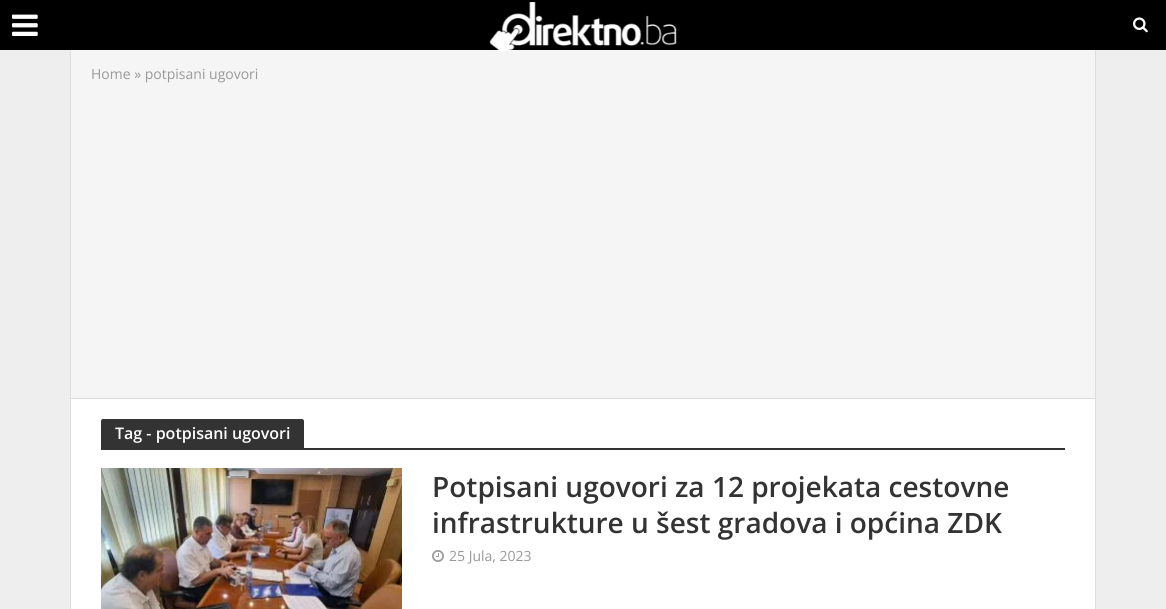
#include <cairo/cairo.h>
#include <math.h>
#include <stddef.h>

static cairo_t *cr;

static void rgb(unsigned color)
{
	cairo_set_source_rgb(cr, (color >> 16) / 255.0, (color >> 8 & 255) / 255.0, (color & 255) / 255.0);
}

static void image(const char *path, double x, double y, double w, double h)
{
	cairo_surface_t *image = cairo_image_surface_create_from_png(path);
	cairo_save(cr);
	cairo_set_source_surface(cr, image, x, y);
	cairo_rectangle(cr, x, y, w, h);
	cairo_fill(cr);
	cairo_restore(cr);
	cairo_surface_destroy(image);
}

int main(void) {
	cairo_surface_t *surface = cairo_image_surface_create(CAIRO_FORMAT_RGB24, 1166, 609);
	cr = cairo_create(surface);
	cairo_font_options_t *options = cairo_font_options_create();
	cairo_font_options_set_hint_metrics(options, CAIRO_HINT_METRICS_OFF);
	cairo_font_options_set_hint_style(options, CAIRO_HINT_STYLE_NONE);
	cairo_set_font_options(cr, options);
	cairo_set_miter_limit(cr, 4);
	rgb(0xeeeeee);
	cairo_paint(cr);
	cairo_rectangle(cr, 70.5, 49.5, 1025, 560);
	rgb(0xdddddd);
	cairo_set_line_width(cr, 1);
	cairo_stroke(cr);
	rgb(0x000000);
	cairo_rectangle(cr, 0, 0, 1166, 50);
	cairo_fill(cr);
	image("img/1.png", 12, 14, 26, 22);
	rgb(0xf5f5f5);
	cairo_rectangle(cr, 71, 50, 1024, 348);
	cairo_fill(cr);
	image("img/2.png", 489, 2, 188, 50);
	image("img/3.png", 1133, 17, 15, 16);
	rgb(0xffffff);
	cairo_rectangle(cr, 71, 399, 1024, 210);
	cairo_fill(cr);
	rgb(0xdadada);
	cairo_rectangle(cr, 71, 398, 1024, 1);
	cairo_fill(cr);
	rgb(0x333333);
	cairo_new_path(cr);
	cairo_move_to(cr, 103, 419);
	cairo_line_to(cr, 302, 419);
	cairo_curve_to(cr, 303, 419, 304, 420, 304, 421);
	cairo_line_to(cr, 304, 448);
	cairo_line_to(cr, 101, 448);
	cairo_line_to(cr, 101, 421);
	cairo_curve_to(cr, 101, 420, 102, 419, 103, 419);
	cairo_close_path(cr);
	cairo_fill(cr);
	cairo_rectangle(cr, 101, 448, 964, 2);
	cairo_fill(cr);
	image("img/4.png", 101, 468, 301, 141);
	image("img/5.png", 432, 550, 12, 12);
	cairo_select_font_face(cr, "Open Sans", CAIRO_FONT_SLANT_NORMAL, CAIRO_FONT_WEIGHT_NORMAL);
	cairo_set_font_size(cr, 14);
	rgb(0x999999);
	cairo_move_to(cr, 91, 79);
	cairo_show_text(cr, "Home » potpisani ugovori");
	cairo_select_font_face(cr, "Open Sans SemiBold", CAIRO_FONT_SLANT_NORMAL, CAIRO_FONT_WEIGHT_NORMAL);
	cairo_set_font_size(cr, 16);
	rgb(0xffffff);
	cairo_move_to(cr, 115, 439);
	cairo_show_text(cr, "Tag - potpisani ugovori");
	cairo_set_font_size(cr, 28);
	rgb(0x333333);
	cairo_move_to(cr, 432, 497);
	cairo_show_text(cr, "Potpisani ugovori za 12 projekata cestovne");
	cairo_move_to(cr, 432, 533);
	cairo_show_text(cr, "infrastrukture u šest gradova i općina ZDK");
	cairo_select_font_face(cr, "Open Sans", CAIRO_FONT_SLANT_NORMAL, CAIRO_FONT_WEIGHT_NORMAL);
	cairo_set_font_size(cr, 14);
	rgb(0x999999);
	cairo_move_to(cr, 449, 561);
	cairo_show_text(cr, "25 Jula, 2023");
	cairo_surface_write_to_png(surface, "page.png");
	cairo_font_options_destroy(options);
	cairo_destroy(cr);
	cairo_surface_destroy(surface);
	return 0;
}
